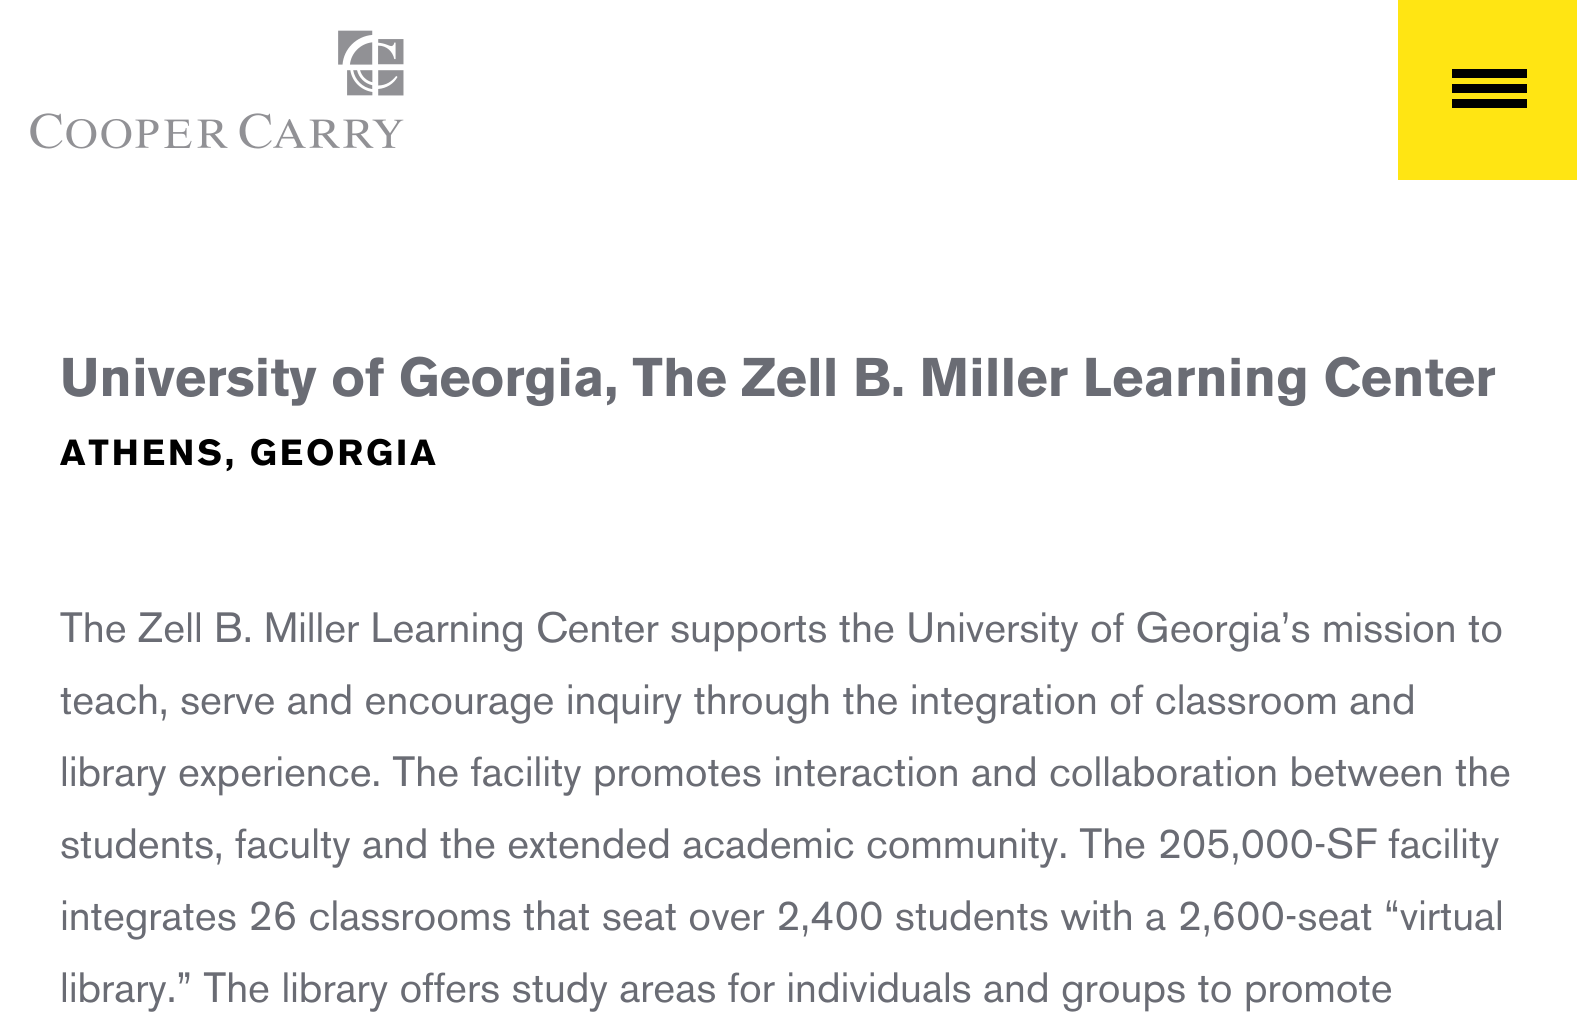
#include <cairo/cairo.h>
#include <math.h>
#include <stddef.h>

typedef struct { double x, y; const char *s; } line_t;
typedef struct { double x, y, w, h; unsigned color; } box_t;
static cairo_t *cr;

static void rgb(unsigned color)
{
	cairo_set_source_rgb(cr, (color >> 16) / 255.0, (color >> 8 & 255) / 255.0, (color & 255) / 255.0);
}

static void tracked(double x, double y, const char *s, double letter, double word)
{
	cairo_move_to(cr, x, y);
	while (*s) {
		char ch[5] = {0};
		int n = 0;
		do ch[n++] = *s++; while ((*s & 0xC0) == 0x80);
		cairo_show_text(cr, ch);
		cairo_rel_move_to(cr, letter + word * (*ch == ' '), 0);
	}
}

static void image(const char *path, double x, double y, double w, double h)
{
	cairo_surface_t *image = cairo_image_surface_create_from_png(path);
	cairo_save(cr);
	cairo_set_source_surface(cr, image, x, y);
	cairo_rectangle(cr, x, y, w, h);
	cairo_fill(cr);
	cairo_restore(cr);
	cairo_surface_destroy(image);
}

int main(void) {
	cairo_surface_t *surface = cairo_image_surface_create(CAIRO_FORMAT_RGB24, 1577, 1031);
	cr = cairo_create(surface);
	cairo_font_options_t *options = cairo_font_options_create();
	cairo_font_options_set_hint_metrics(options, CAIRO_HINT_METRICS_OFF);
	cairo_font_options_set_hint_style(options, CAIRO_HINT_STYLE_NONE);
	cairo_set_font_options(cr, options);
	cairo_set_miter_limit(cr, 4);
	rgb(0xffffff);
	cairo_paint(cr);
	image("img/1.png", 30, 30, 374, 119);
	{
		static const box_t items[] = {
			{1398, 0, 179, 180, 0xffe513},
			{1452, 69, 75, 9, 0x000000},
			{1452, 84, 75, 9, 0x000000},
			{1452, 99, 75, 9, 0x000000},
		};
		for (size_t i = 0; i < sizeof items / sizeof *items; i++) {
			rgb(items[i].color);
			cairo_rectangle(cr, items[i].x, items[i].y, items[i].w, items[i].h);
			cairo_fill(cr);
		}
	}
	cairo_select_font_face(cr, "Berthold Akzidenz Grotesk", CAIRO_FONT_SLANT_NORMAL, CAIRO_FONT_WEIGHT_BOLD);
	cairo_set_font_size(cr, 54);
	rgb(0x6a6c74);
	cairo_move_to(cr, 60, 396);
	cairo_show_text(cr, "University of Georgia, The Zell B. Miller Learning Center");
	cairo_set_font_size(cr, 36);
	rgb(0x000000);
	tracked(60, 465, "ATHENS, GEORGIA", 3, 0);
	cairo_select_font_face(cr, "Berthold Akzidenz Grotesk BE", CAIRO_FONT_SLANT_NORMAL, CAIRO_FONT_WEIGHT_NORMAL);
	cairo_set_font_size(cr, 42);
	rgb(0x6a6c74);
	{
		static const line_t items[] = {
			{60, 642, "The Zell B. Miller Learning Center supports the University of Georgia’s mission to"},
			{60, 714, "teach, serve and encourage inquiry through the integration of classroom and"},
			{60, 786, "library experience. The facility promotes interaction and collaboration between the"},
			{60, 858, "students, faculty and the extended academic community. The 205,000-SF facility"},
			{60, 930, "integrates 26 classrooms that seat over 2,400 students with a 2,600-seat “virtual"},
			{60, 1002, "library.” The library offers study areas for individuals and groups to promote"},
		};
		for (size_t i = 0; i < sizeof items / sizeof *items; i++) {
			cairo_move_to(cr, items[i].x, items[i].y);
			cairo_show_text(cr, items[i].s);
		}
	}
	cairo_surface_write_to_png(surface, "page.png");
	cairo_font_options_destroy(options);
	cairo_destroy(cr);
	cairo_surface_destroy(surface);
	return 0;
}
